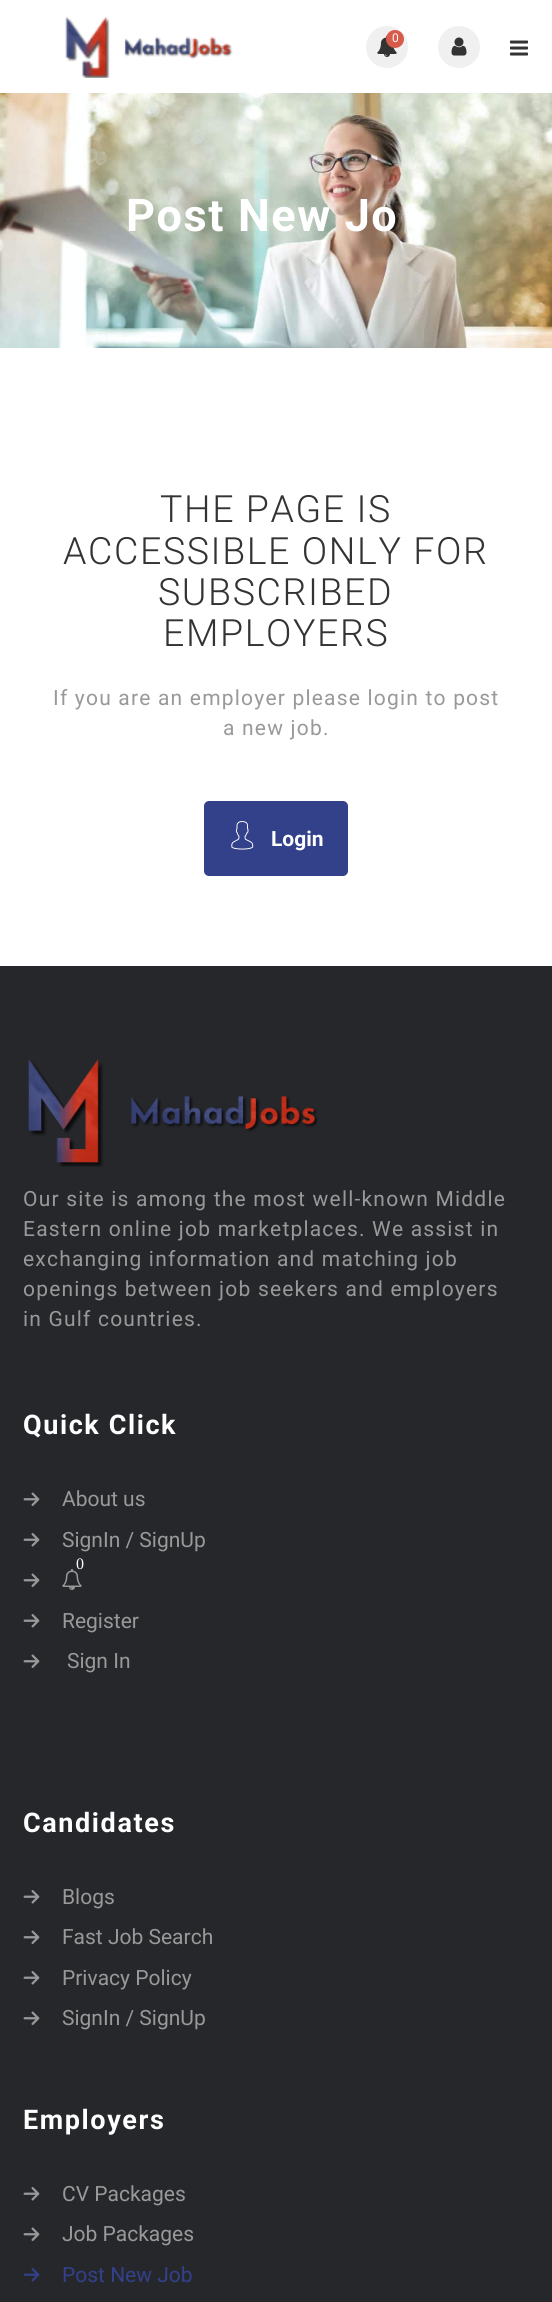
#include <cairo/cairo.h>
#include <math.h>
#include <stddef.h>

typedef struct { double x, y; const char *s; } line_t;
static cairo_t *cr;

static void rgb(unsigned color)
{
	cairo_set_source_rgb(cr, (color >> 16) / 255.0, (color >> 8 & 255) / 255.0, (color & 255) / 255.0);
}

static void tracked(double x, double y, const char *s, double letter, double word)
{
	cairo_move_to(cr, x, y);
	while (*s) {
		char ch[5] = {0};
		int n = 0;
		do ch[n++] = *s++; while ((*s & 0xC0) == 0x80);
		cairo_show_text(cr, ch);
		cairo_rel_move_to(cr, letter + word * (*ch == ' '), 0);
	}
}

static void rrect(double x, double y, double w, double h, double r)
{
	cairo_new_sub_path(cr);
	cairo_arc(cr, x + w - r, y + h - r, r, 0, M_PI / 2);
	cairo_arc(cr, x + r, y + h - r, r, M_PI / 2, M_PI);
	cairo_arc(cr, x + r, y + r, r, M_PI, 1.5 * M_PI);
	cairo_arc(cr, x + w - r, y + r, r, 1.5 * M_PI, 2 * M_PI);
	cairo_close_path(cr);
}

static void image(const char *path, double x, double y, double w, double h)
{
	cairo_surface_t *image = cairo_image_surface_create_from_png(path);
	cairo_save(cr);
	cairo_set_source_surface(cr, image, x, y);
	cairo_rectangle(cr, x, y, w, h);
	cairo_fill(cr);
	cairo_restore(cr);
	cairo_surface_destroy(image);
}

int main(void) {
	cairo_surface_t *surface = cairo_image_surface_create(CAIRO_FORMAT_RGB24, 552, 2302);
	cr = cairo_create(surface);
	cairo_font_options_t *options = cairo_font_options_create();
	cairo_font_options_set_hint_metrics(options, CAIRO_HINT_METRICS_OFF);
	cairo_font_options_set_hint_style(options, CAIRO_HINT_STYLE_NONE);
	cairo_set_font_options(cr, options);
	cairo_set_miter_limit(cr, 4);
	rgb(0xffffff);
	cairo_paint(cr);
	image("img/1.png", 65, 16, 168, 62);
	rgb(0xf0f0f0);
	cairo_arc(cr, 387, 47, 21, 0, 2 * M_PI);
	cairo_fill(cr);
	image("img/2.png", 377, 36, 20, 21);
	rgb(0xd75a4a);
	cairo_arc(cr, 395, 39, 9, 0, 2 * M_PI);
	cairo_fill(cr);
	rgb(0xf0f0f0);
	cairo_arc(cr, 459, 47, 21, 0, 2 * M_PI);
	cairo_fill(cr);
	image("img/3.png", 451, 37, 16, 19);
	image("img/4.png", 510, 40, 18, 16);
	image("img/5.png", 0, 93, 552, 255);
	rgb(0x33408a);
	rrect(205, 802, 142, 73, 4);
	cairo_fill_preserve(cr);
	cairo_stroke(cr);
	image("img/6.png", 231, 821, 23, 29);
	rgb(0x26272b);
	cairo_rectangle(cr, 0, 966, 552, 1336);
	cairo_fill(cr);
	image("img/7.png", 28, 1059, 290, 108);
	image("img/8.png", 23, 1492, 17, 14);
	image("img/9.png", 23, 1533, 17, 14);
	image("img/10.png", 62, 1569, 20, 21);
	image("img/8.png", 23, 1573, 17, 14);
	image("img/9.png", 23, 1614, 17, 14);
	image("img/8.png", 23, 1654, 17, 14);
	image("img/9.png", 23, 1890, 17, 14);
	image("img/8.png", 23, 1930, 17, 14);
	image("img/9.png", 23, 1971, 17, 14);
	image("img/8.png", 23, 2011, 17, 14);
	image("img/9.png", 23, 2187, 17, 14);
	image("img/8.png", 23, 2227, 17, 14);
	image("img/11.png", 23, 2268, 17, 14);
	cairo_select_font_face(cr, "Roboto", CAIRO_FONT_SLANT_NORMAL, CAIRO_FONT_WEIGHT_NORMAL);
	cairo_set_font_size(cr, 12);
	rgb(0xffffff);
	cairo_move_to(cr, 392, 42);
	cairo_show_text(cr, "0");
	cairo_select_font_face(cr, "Roboto", CAIRO_FONT_SLANT_NORMAL, CAIRO_FONT_WEIGHT_BOLD);
	cairo_set_font_size(cr, 45);
	tracked(126, 231, "Post New Jo", 1.6, 0);
	cairo_select_font_face(cr, "Roboto Light", CAIRO_FONT_SLANT_NORMAL, CAIRO_FONT_WEIGHT_NORMAL);
	cairo_set_font_size(cr, 37.5);
	rgb(0x333333);
	{
		static const line_t items[] = {
			{160, 522, "THE PAGE IS"},
			{63, 564, "ACCESSIBLE ONLY FOR"},
			{158, 605, "SUBSCRIBED"},
			{163, 646, "EMPLOYERS"},
		};
		for (size_t i = 0; i < sizeof items / sizeof *items; i++) {
			tracked(items[i].x, items[i].y, items[i].s, 1.6, 0);
		}
	}
	cairo_select_font_face(cr, "Roboto", CAIRO_FONT_SLANT_NORMAL, CAIRO_FONT_WEIGHT_NORMAL);
	cairo_set_font_size(cr, 21);
	rgb(0x999999);
	tracked(53, 705, "If you are an employer please login to post", 1.2, 0);
	tracked(223, 735, "a new job.", 1.2, 0);
	cairo_select_font_face(cr, "Roboto", CAIRO_FONT_SLANT_NORMAL, CAIRO_FONT_WEIGHT_BOLD);
	rgb(0xffffff);
	cairo_move_to(cr, 271, 846);
	cairo_show_text(cr, "Login");
	cairo_select_font_face(cr, "Roboto", CAIRO_FONT_SLANT_NORMAL, CAIRO_FONT_WEIGHT_NORMAL);
	rgb(0x999999);
	{
		static const line_t items[] = {
			{23, 1206, "Our site is among the most well-known Middle"},
			{23, 1236, "Eastern online job marketplaces. We assist in"},
			{23, 1266, "exchanging information and matching job"},
			{23, 1296, "openings between job seekers and employers"},
			{23, 1326, "in Gulf countries."},
		};
		for (size_t i = 0; i < sizeof items / sizeof *items; i++) {
			tracked(items[i].x, items[i].y, items[i].s, 1.2, 0);
		}
	}
	cairo_select_font_face(cr, "Roboto", CAIRO_FONT_SLANT_NORMAL, CAIRO_FONT_WEIGHT_BOLD);
	cairo_set_font_size(cr, 27);
	rgb(0xffffff);
	tracked(23, 1434, "Quick Click", 1.6, 0);
	cairo_select_font_face(cr, "Roboto", CAIRO_FONT_SLANT_NORMAL, CAIRO_FONT_WEIGHT_NORMAL);
	cairo_set_font_size(cr, 21);
	rgb(0x999999);
	cairo_move_to(cr, 62, 1506);
	cairo_show_text(cr, "About us");
	cairo_move_to(cr, 62, 1547);
	cairo_show_text(cr, "SignIn / SignUp");
	cairo_select_font_face(cr, "Liberation Serif", CAIRO_FONT_SLANT_NORMAL, CAIRO_FONT_WEIGHT_NORMAL);
	cairo_set_font_size(cr, 16);
	rgb(0xffffff);
	cairo_move_to(cr, 76, 1569);
	cairo_show_text(cr, "0");
	cairo_select_font_face(cr, "Roboto", CAIRO_FONT_SLANT_NORMAL, CAIRO_FONT_WEIGHT_NORMAL);
	cairo_set_font_size(cr, 21);
	rgb(0x999999);
	cairo_move_to(cr, 62, 1628);
	cairo_show_text(cr, "Register");
	cairo_move_to(cr, 67, 1668);
	cairo_show_text(cr, "Sign In");
	cairo_select_font_face(cr, "Roboto", CAIRO_FONT_SLANT_NORMAL, CAIRO_FONT_WEIGHT_BOLD);
	cairo_set_font_size(cr, 27);
	rgb(0xffffff);
	tracked(23, 1832, "Candidates", 1.6, 0);
	cairo_select_font_face(cr, "Roboto", CAIRO_FONT_SLANT_NORMAL, CAIRO_FONT_WEIGHT_NORMAL);
	cairo_set_font_size(cr, 21);
	rgb(0x999999);
	{
		static const line_t items[] = {
			{62, 1904, "Blogs"},
			{62, 1944, "Fast Job Search"},
			{62, 1985, "Privacy Policy"},
			{62, 2025, "SignIn / SignUp"},
		};
		for (size_t i = 0; i < sizeof items / sizeof *items; i++) {
			cairo_move_to(cr, items[i].x, items[i].y);
			cairo_show_text(cr, items[i].s);
		}
	}
	cairo_select_font_face(cr, "Roboto", CAIRO_FONT_SLANT_NORMAL, CAIRO_FONT_WEIGHT_BOLD);
	cairo_set_font_size(cr, 27);
	rgb(0xffffff);
	tracked(23, 2129, "Employers", 1.6, 0);
	cairo_select_font_face(cr, "Roboto", CAIRO_FONT_SLANT_NORMAL, CAIRO_FONT_WEIGHT_NORMAL);
	cairo_set_font_size(cr, 21);
	rgb(0x999999);
	cairo_move_to(cr, 62, 2201);
	cairo_show_text(cr, "CV Packages");
	cairo_move_to(cr, 62, 2241);
	cairo_show_text(cr, "Job Packages");
	rgb(0x33408a);
	cairo_move_to(cr, 62, 2282);
	cairo_show_text(cr, "Post New Job");
	cairo_surface_write_to_png(surface, "page.png");
	cairo_font_options_destroy(options);
	cairo_destroy(cr);
	cairo_surface_destroy(surface);
	return 0;
}
